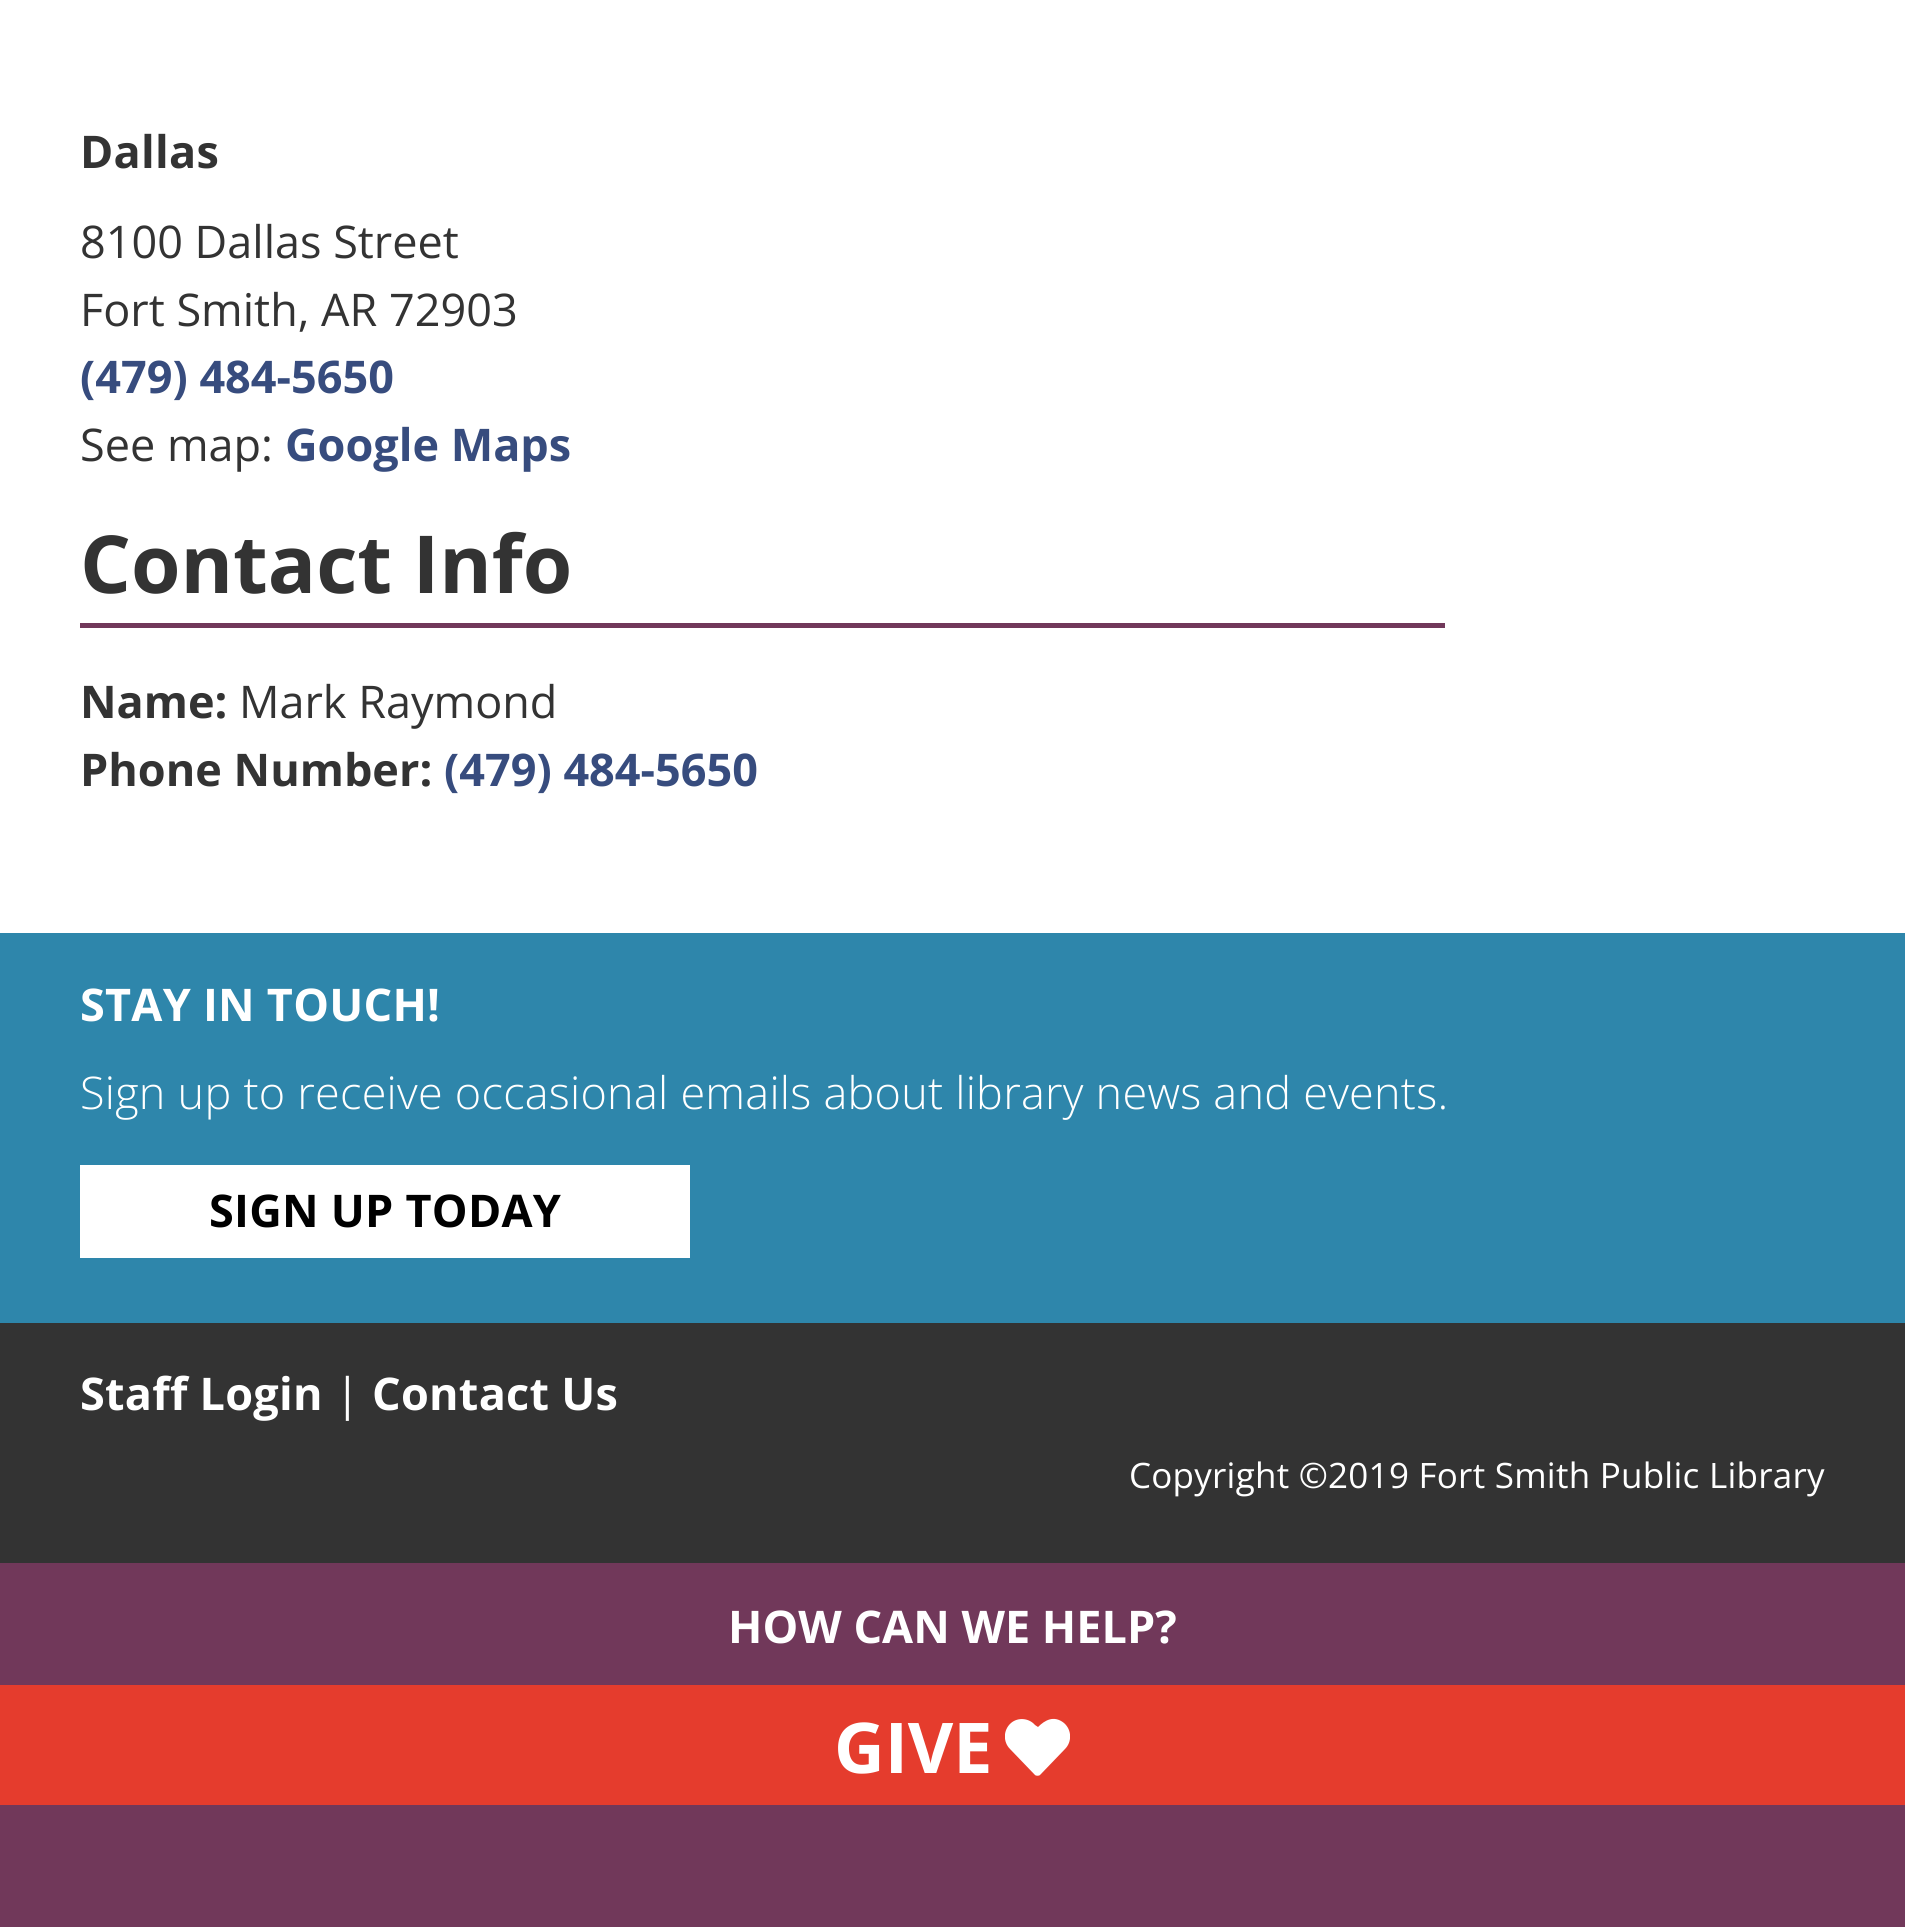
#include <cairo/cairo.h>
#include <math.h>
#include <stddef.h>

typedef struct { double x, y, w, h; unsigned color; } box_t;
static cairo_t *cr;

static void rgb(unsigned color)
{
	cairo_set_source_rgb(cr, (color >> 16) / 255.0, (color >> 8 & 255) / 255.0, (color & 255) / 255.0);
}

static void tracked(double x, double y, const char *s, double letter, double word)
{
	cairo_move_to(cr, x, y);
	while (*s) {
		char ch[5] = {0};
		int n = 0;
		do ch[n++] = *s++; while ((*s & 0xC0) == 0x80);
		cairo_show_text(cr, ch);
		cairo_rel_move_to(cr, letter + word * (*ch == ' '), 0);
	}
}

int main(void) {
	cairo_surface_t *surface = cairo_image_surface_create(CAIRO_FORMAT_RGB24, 1905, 1927);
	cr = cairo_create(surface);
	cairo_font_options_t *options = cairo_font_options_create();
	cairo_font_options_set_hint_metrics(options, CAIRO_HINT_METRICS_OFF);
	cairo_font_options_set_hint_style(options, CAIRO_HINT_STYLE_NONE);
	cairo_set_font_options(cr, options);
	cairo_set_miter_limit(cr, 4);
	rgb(0xffffff);
	cairo_paint(cr);
	{
		static const box_t items[] = {
			{80, 623, 1365, 5, 0x71385a},
			{0, 1323, 1905, 240, 0x333333},
			{0, 933, 1905, 390, 0x2e86ab},
			{80, 1165, 610, 93, 0xffffff},
			{0, 1563, 1905, 122, 0x71385a},
			{0, 1805, 1905, 122, 0x71385a},
			{0, 1685, 1905, 120, 0xe53c2d},
		};
		for (size_t i = 0; i < sizeof items / sizeof *items; i++) {
			rgb(items[i].color);
			cairo_rectangle(cr, items[i].x, items[i].y, items[i].w, items[i].h);
			cairo_fill(cr);
		}
	}
	cairo_save(cr);
	cairo_rectangle(cr, 1005, 1715, 65, 65);
	cairo_clip(cr);
	rgb(0xffffff);
	cairo_new_path(cr);
	cairo_move_to(cr, 1064, 1723);
	cairo_curve_to(cr, 1054, 1715, 1045, 1720, 1038, 1727);
	cairo_line_to(cr, 1035, 1725);
	cairo_curve_to(cr, 1029, 1718, 1018, 1717, 1011, 1723);
	cairo_curve_to(cr, 1003, 1730, 1003, 1742, 1010, 1749);
	cairo_line_to(cr, 1035, 1775);
	cairo_curve_to(cr, 1036, 1776, 1039, 1776, 1040, 1775);
	cairo_line_to(cr, 1065, 1749);
	cairo_curve_to(cr, 1072, 1742, 1072, 1730, 1064, 1723);
	cairo_close_path(cr);
	cairo_fill(cr);
	cairo_restore(cr);
	cairo_select_font_face(cr, "Open Sans", CAIRO_FONT_SLANT_NORMAL, CAIRO_FONT_WEIGHT_BOLD);
	cairo_set_font_size(cr, 45);
	rgb(0x333333);
	tracked(80, 168, "Dallas", 0.25, 0);
	cairo_select_font_face(cr, "Open Sans", CAIRO_FONT_SLANT_NORMAL, CAIRO_FONT_WEIGHT_NORMAL);
	cairo_move_to(cr, 80, 258);
	cairo_show_text(cr, "8100 Dallas Street");
	cairo_move_to(cr, 80, 326);
	cairo_show_text(cr, "Fort Smith, AR 72903");
	cairo_select_font_face(cr, "Open Sans", CAIRO_FONT_SLANT_NORMAL, CAIRO_FONT_WEIGHT_BOLD);
	rgb(0x374c7e);
	cairo_move_to(cr, 80, 393);
	cairo_show_text(cr, "(479) 484-5650");
	cairo_select_font_face(cr, "Open Sans", CAIRO_FONT_SLANT_NORMAL, CAIRO_FONT_WEIGHT_NORMAL);
	rgb(0x333333);
	cairo_move_to(cr, 80, 461);
	cairo_show_text(cr, "See map:");
	cairo_select_font_face(cr, "Open Sans", CAIRO_FONT_SLANT_NORMAL, CAIRO_FONT_WEIGHT_BOLD);
	rgb(0x374c7e);
	cairo_move_to(cr, 285, 461);
	cairo_show_text(cr, "Google Maps");
	cairo_set_font_size(cr, 80);
	rgb(0x333333);
	cairo_move_to(cr, 80, 593);
	cairo_show_text(cr, "Contact Info");
	cairo_set_font_size(cr, 45);
	cairo_move_to(cr, 80, 718);
	cairo_show_text(cr, "Name:");
	cairo_select_font_face(cr, "Open Sans", CAIRO_FONT_SLANT_NORMAL, CAIRO_FONT_WEIGHT_NORMAL);
	cairo_move_to(cr, 239, 718);
	cairo_show_text(cr, "Mark Raymond");
	cairo_select_font_face(cr, "Open Sans", CAIRO_FONT_SLANT_NORMAL, CAIRO_FONT_WEIGHT_BOLD);
	cairo_move_to(cr, 80, 786);
	cairo_show_text(cr, "Phone Number:");
	rgb(0x374c7e);
	cairo_move_to(cr, 444, 786);
	cairo_show_text(cr, "(479) 484-5650");
	rgb(0xffffff);
	tracked(80, 1021, "STAY IN TOUCH!", 0.25, 0);
	cairo_select_font_face(cr, "Open Sans Light", CAIRO_FONT_SLANT_NORMAL, CAIRO_FONT_WEIGHT_NORMAL);
	tracked(80, 1109, "Sign up to receive occasional emails about library news and events.", 0.25, 0);
	cairo_select_font_face(cr, "Open Sans", CAIRO_FONT_SLANT_NORMAL, CAIRO_FONT_WEIGHT_BOLD);
	rgb(0x000000);
	tracked(209, 1227, "SIGN UP TODAY", 0.25, 0);
	rgb(0xffffff);
	tracked(80, 1410, "Staff Login", 0.25, 0);
	cairo_select_font_face(cr, "Open Sans", CAIRO_FONT_SLANT_NORMAL, CAIRO_FONT_WEIGHT_NORMAL);
	tracked(335, 1410, "|", 0.25, 0);
	cairo_select_font_face(cr, "Open Sans", CAIRO_FONT_SLANT_NORMAL, CAIRO_FONT_WEIGHT_BOLD);
	tracked(372, 1410, "Contact Us", 0.25, 0);
	cairo_select_font_face(cr, "Open Sans", CAIRO_FONT_SLANT_NORMAL, CAIRO_FONT_WEIGHT_NORMAL);
	cairo_set_font_size(cr, 35);
	tracked(1129, 1488, "Copyright ©2019 Fort Smith Public Library", 0.25, 0);
	cairo_select_font_face(cr, "Open Sans", CAIRO_FONT_SLANT_NORMAL, CAIRO_FONT_WEIGHT_BOLD);
	cairo_set_font_size(cr, 45);
	cairo_move_to(cr, 728, 1643);
	cairo_show_text(cr, "HOW CAN WE HELP?");
	cairo_set_font_size(cr, 70);
	cairo_move_to(cr, 834, 1773);
	cairo_show_text(cr, "GIVE");
	cairo_surface_write_to_png(surface, "page.png");
	cairo_font_options_destroy(options);
	cairo_destroy(cr);
	cairo_surface_destroy(surface);
	return 0;
}
